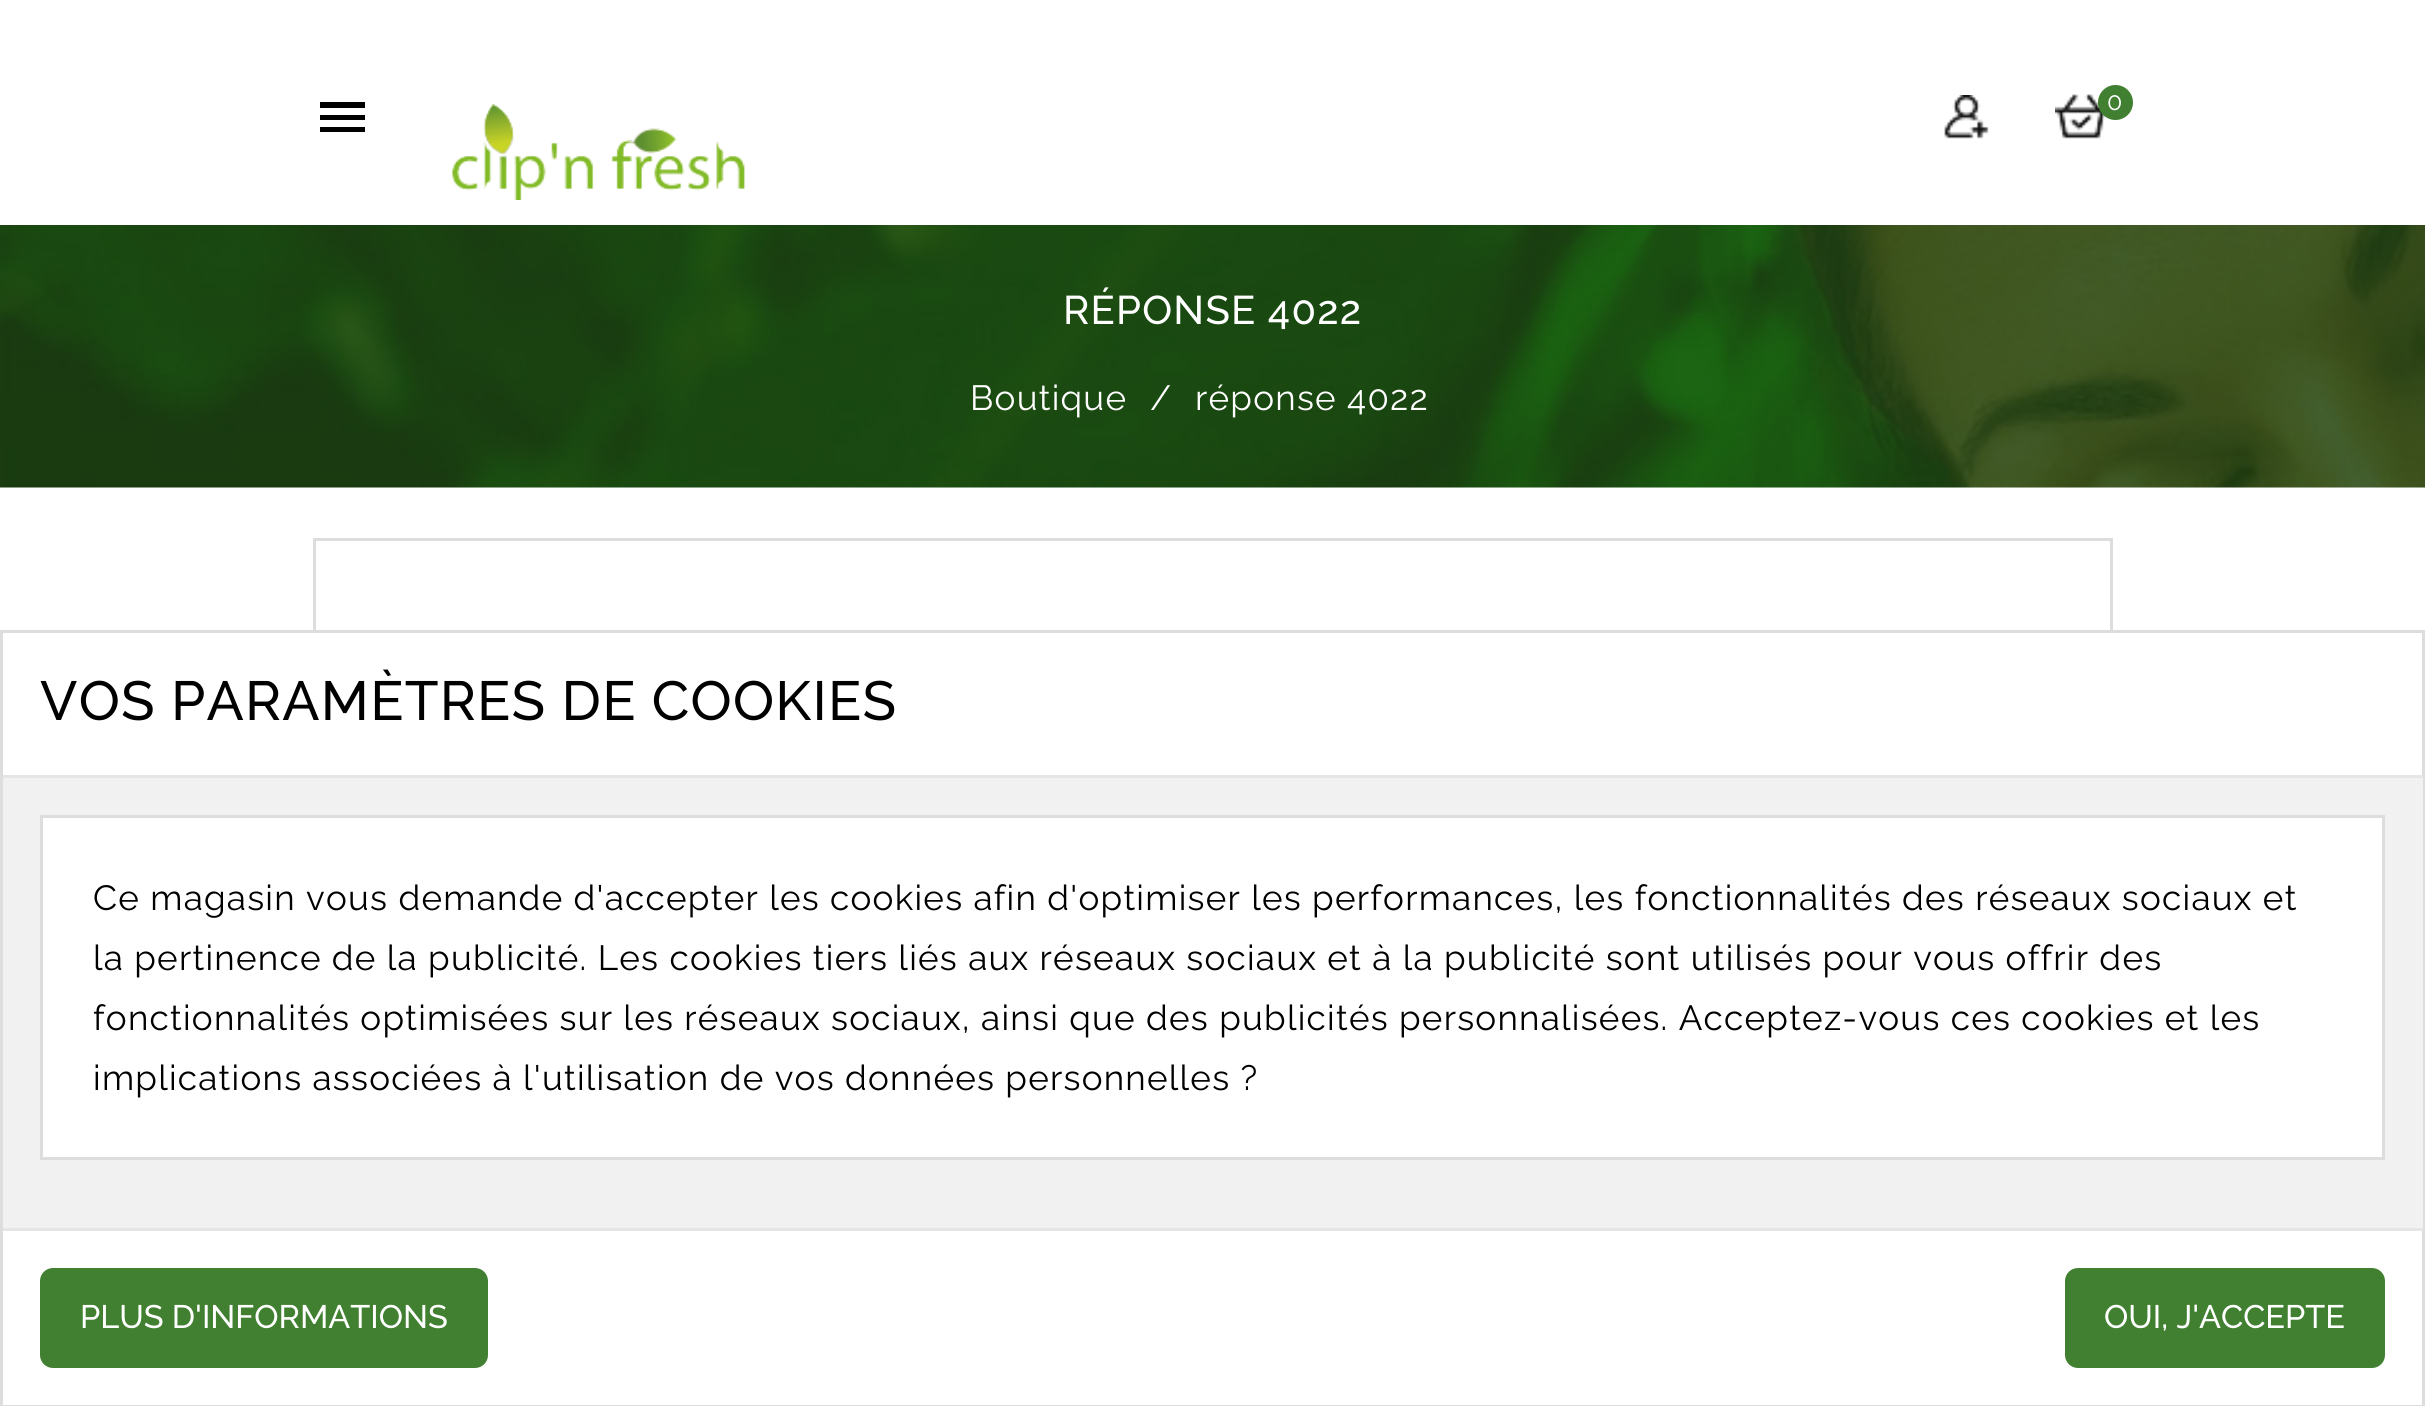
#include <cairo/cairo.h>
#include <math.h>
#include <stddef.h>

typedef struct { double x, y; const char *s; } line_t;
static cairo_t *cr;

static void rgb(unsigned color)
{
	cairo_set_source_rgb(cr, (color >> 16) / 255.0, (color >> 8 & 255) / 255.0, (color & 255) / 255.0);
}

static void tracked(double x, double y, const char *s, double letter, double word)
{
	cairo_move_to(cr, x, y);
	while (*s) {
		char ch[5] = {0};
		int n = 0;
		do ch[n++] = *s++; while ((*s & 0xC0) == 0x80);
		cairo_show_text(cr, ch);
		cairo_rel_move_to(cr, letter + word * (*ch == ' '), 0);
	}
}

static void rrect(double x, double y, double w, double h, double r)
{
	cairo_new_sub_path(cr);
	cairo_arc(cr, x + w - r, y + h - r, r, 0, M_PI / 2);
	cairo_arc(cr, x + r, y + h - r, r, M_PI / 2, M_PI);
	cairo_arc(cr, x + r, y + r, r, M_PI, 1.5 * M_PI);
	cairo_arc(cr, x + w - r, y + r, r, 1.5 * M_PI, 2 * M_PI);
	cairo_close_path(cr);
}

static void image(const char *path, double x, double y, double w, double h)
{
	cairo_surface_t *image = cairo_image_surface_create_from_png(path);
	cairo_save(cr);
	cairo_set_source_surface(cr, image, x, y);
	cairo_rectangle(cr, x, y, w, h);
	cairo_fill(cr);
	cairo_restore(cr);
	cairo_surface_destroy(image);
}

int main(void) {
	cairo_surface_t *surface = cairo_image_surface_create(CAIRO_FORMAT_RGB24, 2425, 1406);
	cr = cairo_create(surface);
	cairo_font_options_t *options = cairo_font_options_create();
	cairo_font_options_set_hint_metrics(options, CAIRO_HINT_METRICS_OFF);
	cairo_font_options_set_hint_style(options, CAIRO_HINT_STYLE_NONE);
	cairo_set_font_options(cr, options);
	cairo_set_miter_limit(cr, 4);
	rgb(0xffffff);
	cairo_paint(cr);
	rgb(0x000000);
	cairo_new_path(cr);
	cairo_move_to(cr, 320, 102);
	cairo_line_to(cr, 365, 102);
	cairo_line_to(cr, 365, 108);
	cairo_line_to(cr, 320, 108);
	cairo_close_path(cr);
	cairo_move_to(cr, 320, 120);
	cairo_line_to(cr, 320, 115);
	cairo_line_to(cr, 365, 115);
	cairo_line_to(cr, 365, 120);
	cairo_close_path(cr);
	cairo_move_to(cr, 320, 132);
	cairo_line_to(cr, 320, 127);
	cairo_line_to(cr, 365, 127);
	cairo_line_to(cr, 365, 132);
	cairo_close_path(cr);
	cairo_fill(cr);
	image("img/1.png", 452, 104, 293, 96);
	image("img/2.png", 1944, 95, 45, 44);
	image("img/3.png", 2055, 94, 51, 45);
	rgb(0x408030);
	cairo_arc(cr, 2115.5, 102.5, 17.5, 0, 2 * M_PI);
	cairo_fill(cr);
	image("img/4.png", 0, 225, 2425, 263);
	cairo_rectangle(cr, 314.5, 539.5, 1797, 477);
	rgb(0xdddddd);
	cairo_set_line_width(cr, 3);
	cairo_stroke(cr);
	rgb(0xffffff);
	cairo_rectangle(cr, 313, 633, 1800, 385);
	cairo_fill(cr);
	cairo_rectangle(cr, 1.5, 631.5, 2422, 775);
	rgb(0xdddddd);
	cairo_stroke(cr);
	rgb(0xe5e5e5);
	cairo_rectangle(cr, 3, 775, 2420, 3);
	cairo_fill(cr);
	rgb(0xf1f1f1);
	cairo_rectangle(cr, 3, 778, 2420, 450);
	cairo_fill(cr);
	rgb(0xffffff);
	cairo_rectangle(cr, 41.5, 816.5, 2342, 342);
	cairo_fill_preserve(cr);
	rgb(0xdddddd);
	cairo_stroke(cr);
	rgb(0xe5e5e5);
	cairo_rectangle(cr, 3, 1228, 2420, 3);
	cairo_fill(cr);
	rgb(0x408030);
	rrect(40, 1268, 448, 100, 13);
	cairo_fill(cr);
	rrect(2065, 1268, 320, 100, 13);
	cairo_fill(cr);
	cairo_select_font_face(cr, "Raleway", CAIRO_FONT_SLANT_NORMAL, CAIRO_FONT_WEIGHT_NORMAL);
	cairo_set_font_size(cr, 25);
	rgb(0xffffff);
	tracked(2107, 110, "0", 1.25, 0);
	cairo_select_font_face(cr, "Raleway Medium", CAIRO_FONT_SLANT_NORMAL, CAIRO_FONT_WEIGHT_NORMAL);
	cairo_set_font_size(cr, 40);
	tracked(1063, 324, "RÉPONSE 4022", 1.25, 0);
	cairo_select_font_face(cr, "Raleway", CAIRO_FONT_SLANT_NORMAL, CAIRO_FONT_WEIGHT_NORMAL);
	cairo_set_font_size(cr, 35);
	{
		static const line_t items[] = {
			{970, 410, "Boutique"},
			{1150, 410, "/"},
			{1195, 410, "réponse 4022"},
		};
		for (size_t i = 0; i < sizeof items / sizeof *items; i++) {
			tracked(items[i].x, items[i].y, items[i].s, 1.25, 0);
		}
	}
	cairo_select_font_face(cr, "Raleway Medium", CAIRO_FONT_SLANT_NORMAL, CAIRO_FONT_WEIGHT_NORMAL);
	cairo_set_font_size(cr, 55);
	rgb(0x000000);
	tracked(40, 720, "VOS PARAMÈTRES DE COOKIES", 1.25, 0);
	cairo_select_font_face(cr, "Raleway", CAIRO_FONT_SLANT_NORMAL, CAIRO_FONT_WEIGHT_NORMAL);
	cairo_set_font_size(cr, 35);
	{
		static const line_t items[] = {
			{93, 910, "Ce magasin vous demande d'accepter les cookies afin d'optimiser les performances, les fonctionnalités des réseaux sociaux et"},
			{93, 970, "la pertinence de la publicité. Les cookies tiers liés aux réseaux sociaux et à la publicité sont utilisés pour vous offrir des"},
			{93, 1030, "fonctionnalités optimisées sur les réseaux sociaux, ainsi que des publicités personnalisées. Acceptez-vous ces cookies et les"},
			{93, 1090, "implications associées à l'utilisation de vos données personnelles ?"},
		};
		for (size_t i = 0; i < sizeof items / sizeof *items; i++) {
			tracked(items[i].x, items[i].y, items[i].s, 1.25, 0);
		}
	}
	cairo_select_font_face(cr, "Raleway Medium", CAIRO_FONT_SLANT_NORMAL, CAIRO_FONT_WEIGHT_NORMAL);
	cairo_set_font_size(cr, 32.5);
	rgb(0xffffff);
	cairo_move_to(cr, 80, 1328);
	cairo_show_text(cr, "PLUS D'INFORMATIONS");
	cairo_move_to(cr, 2104, 1328);
	cairo_show_text(cr, "OUI, J'ACCEPTE");
	cairo_surface_write_to_png(surface, "page.png");
	cairo_font_options_destroy(options);
	cairo_destroy(cr);
	cairo_surface_destroy(surface);
	return 0;
}
